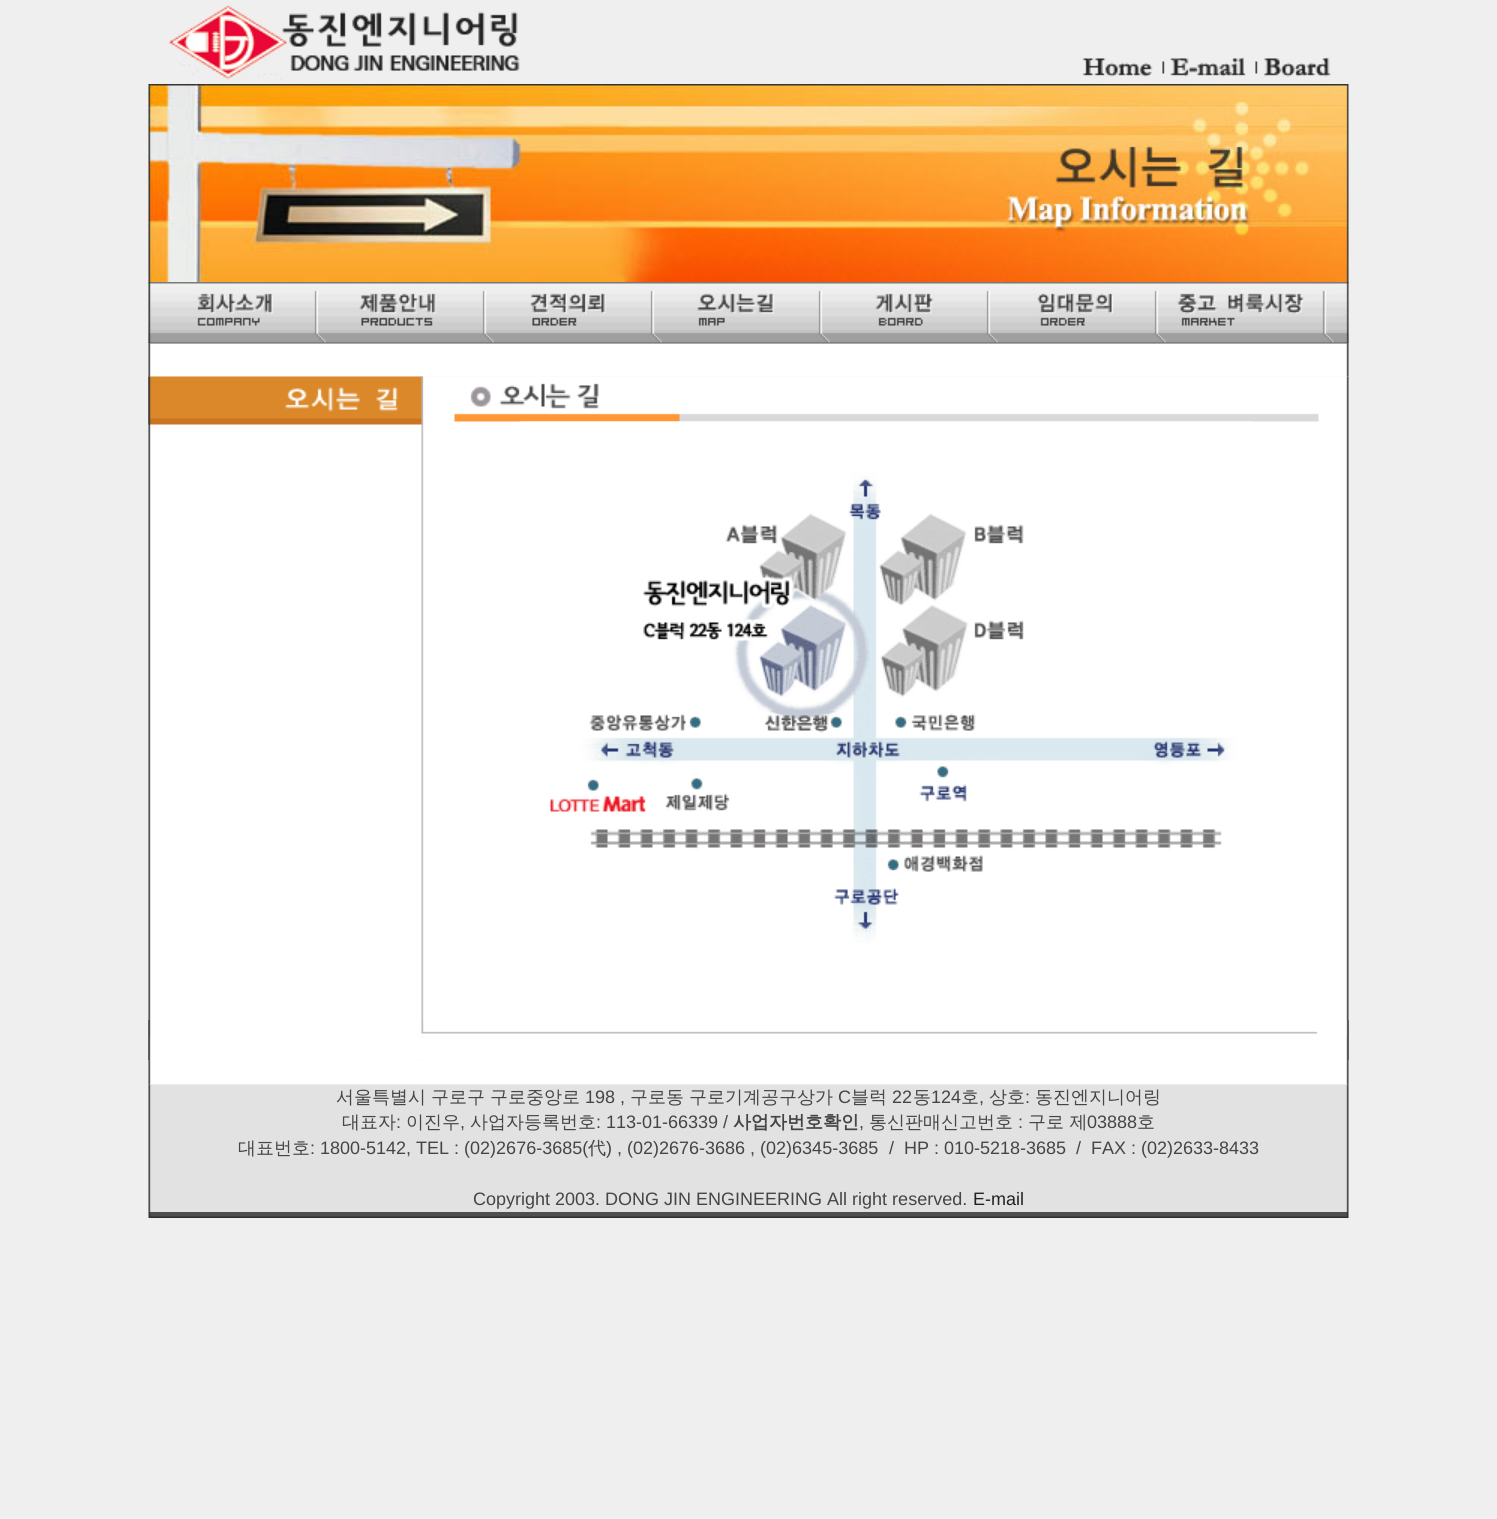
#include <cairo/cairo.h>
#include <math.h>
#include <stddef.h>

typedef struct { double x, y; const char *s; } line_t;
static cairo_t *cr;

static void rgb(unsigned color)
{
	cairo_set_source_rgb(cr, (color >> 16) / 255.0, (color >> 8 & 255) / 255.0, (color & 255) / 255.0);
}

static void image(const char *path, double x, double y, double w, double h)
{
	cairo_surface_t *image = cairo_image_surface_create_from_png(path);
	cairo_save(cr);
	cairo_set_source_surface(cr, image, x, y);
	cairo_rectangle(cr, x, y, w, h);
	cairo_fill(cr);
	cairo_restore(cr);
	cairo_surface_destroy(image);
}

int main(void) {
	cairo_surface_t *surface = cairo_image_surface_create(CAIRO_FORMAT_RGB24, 1497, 1519);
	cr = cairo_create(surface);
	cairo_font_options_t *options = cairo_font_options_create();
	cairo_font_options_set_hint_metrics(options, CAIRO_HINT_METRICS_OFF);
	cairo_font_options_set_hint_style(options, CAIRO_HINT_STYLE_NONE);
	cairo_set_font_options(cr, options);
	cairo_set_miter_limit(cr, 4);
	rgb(0xefefef);
	cairo_paint(cr);
	image("img/1.png", 169, 5, 351, 75);
	image("img/2.png", 1082, 57, 249, 20);
	image("img/3.png", 148, 84, 536, 198);
	image("img/4.png", 684, 84, 665, 198);
	image("img/5.png", 148, 282, 1201, 62);
	image("img/14.png", 148, 343, 1201, 34);
	image("img/6.png", 148, 282, 169, 62);
	image("img/7.png", 316, 290, 169, 54);
	image("img/8.png", 484, 290, 169, 54);
	image("img/9.png", 652, 290, 169, 54);
	image("img/10.png", 820, 290, 169, 54);
	image("img/11.png", 988, 290, 169, 54);
	image("img/12.png", 1156, 290, 178, 54);
	image("img/13.png", 1333, 282, 16, 62);
	image("img/15.png", 148, 376, 1201, 685);
	image("img/16.png", 148, 376, 275, 49);
	image("img/17.png", 454, 383, 865, 39);
	image("img/18.png", 520, 421, 733, 522);
	image("img/20.png", 148, 1036, 1201, 25);
	image("img/19.png", 148, 1020, 1201, 17);
	image("img/21.png", 148, 1060, 1201, 25);
	image("img/22.png", 148, 1084, 1201, 128);
	image("img/23.png", 148, 1212, 1201, 6);
	cairo_select_font_face(cr, "WenQuanYi Zen Hei Medium", CAIRO_FONT_SLANT_NORMAL, CAIRO_FONT_WEIGHT_NORMAL);
	cairo_set_font_size(cr, 18);
	rgb(0x454545);
	{
		static const line_t items[] = {
			{336, 1103, "서울특별시"},
			{431, 1103, "구로구"},
			{490, 1103, "구로중앙로"},
		};
		for (size_t i = 0; i < sizeof items / sizeof *items; i++) {
			cairo_move_to(cr, items[i].x, items[i].y);
			cairo_show_text(cr, items[i].s);
		}
	}
	cairo_select_font_face(cr, "Liberation Sans", CAIRO_FONT_SLANT_NORMAL, CAIRO_FONT_WEIGHT_NORMAL);
	cairo_move_to(cr, 585, 1103);
	cairo_show_text(cr, "198 ,");
	cairo_select_font_face(cr, "WenQuanYi Zen Hei Medium", CAIRO_FONT_SLANT_NORMAL, CAIRO_FONT_WEIGHT_NORMAL);
	cairo_move_to(cr, 630, 1103);
	cairo_show_text(cr, "구로동");
	cairo_move_to(cr, 689, 1103);
	cairo_show_text(cr, "구로기계공구상가");
	cairo_select_font_face(cr, "Liberation Sans", CAIRO_FONT_SLANT_NORMAL, CAIRO_FONT_WEIGHT_NORMAL);
	cairo_move_to(cr, 838, 1103);
	cairo_show_text(cr, "C");
	cairo_select_font_face(cr, "WenQuanYi Zen Hei Medium", CAIRO_FONT_SLANT_NORMAL, CAIRO_FONT_WEIGHT_NORMAL);
	cairo_move_to(cr, 851, 1103);
	cairo_show_text(cr, "블럭");
	cairo_select_font_face(cr, "Liberation Sans", CAIRO_FONT_SLANT_NORMAL, CAIRO_FONT_WEIGHT_NORMAL);
	cairo_move_to(cr, 892, 1103);
	cairo_show_text(cr, "22");
	cairo_select_font_face(cr, "WenQuanYi Zen Hei Medium", CAIRO_FONT_SLANT_NORMAL, CAIRO_FONT_WEIGHT_NORMAL);
	cairo_move_to(cr, 913, 1103);
	cairo_show_text(cr, "동");
	cairo_select_font_face(cr, "Liberation Sans", CAIRO_FONT_SLANT_NORMAL, CAIRO_FONT_WEIGHT_NORMAL);
	cairo_move_to(cr, 931, 1103);
	cairo_show_text(cr, "124");
	cairo_select_font_face(cr, "WenQuanYi Zen Hei Medium", CAIRO_FONT_SLANT_NORMAL, CAIRO_FONT_WEIGHT_NORMAL);
	cairo_move_to(cr, 961, 1103);
	cairo_show_text(cr, "호");
	cairo_move_to(cr, 989, 1103);
	cairo_show_text(cr, "상호");
	cairo_select_font_face(cr, "Liberation Sans", CAIRO_FONT_SLANT_NORMAL, CAIRO_FONT_WEIGHT_NORMAL);
	cairo_move_to(cr, 1025, 1103);
	cairo_show_text(cr, ":");
	cairo_select_font_face(cr, "WenQuanYi Zen Hei Medium", CAIRO_FONT_SLANT_NORMAL, CAIRO_FONT_WEIGHT_NORMAL);
	cairo_move_to(cr, 1035, 1103);
	cairo_show_text(cr, "동진엔지니어링");
	cairo_select_font_face(cr, "Liberation Sans", CAIRO_FONT_SLANT_NORMAL, CAIRO_FONT_WEIGHT_NORMAL);
	cairo_move_to(cr, 979, 1103);
	cairo_show_text(cr, ",");
	cairo_select_font_face(cr, "WenQuanYi Zen Hei Medium", CAIRO_FONT_SLANT_NORMAL, CAIRO_FONT_WEIGHT_NORMAL);
	cairo_move_to(cr, 342, 1128);
	cairo_show_text(cr, "대표자");
	cairo_select_font_face(cr, "Liberation Sans", CAIRO_FONT_SLANT_NORMAL, CAIRO_FONT_WEIGHT_NORMAL);
	cairo_move_to(cr, 396, 1128);
	cairo_show_text(cr, ":");
	cairo_select_font_face(cr, "WenQuanYi Zen Hei Medium", CAIRO_FONT_SLANT_NORMAL, CAIRO_FONT_WEIGHT_NORMAL);
	cairo_move_to(cr, 406, 1128);
	cairo_show_text(cr, "이진우");
	cairo_move_to(cr, 470, 1128);
	cairo_show_text(cr, "사업자등록번호");
	cairo_select_font_face(cr, "Liberation Sans", CAIRO_FONT_SLANT_NORMAL, CAIRO_FONT_WEIGHT_NORMAL);
	cairo_move_to(cr, 596, 1128);
	cairo_show_text(cr, ": 113-01-66339 /");
	cairo_select_font_face(cr, "WenQuanYi Zen Hei", CAIRO_FONT_SLANT_NORMAL, CAIRO_FONT_WEIGHT_BOLD);
	cairo_move_to(cr, 733, 1128);
	cairo_show_text(cr, "사업자번호확인");
	cairo_select_font_face(cr, "WenQuanYi Zen Hei Medium", CAIRO_FONT_SLANT_NORMAL, CAIRO_FONT_WEIGHT_NORMAL);
	cairo_move_to(cr, 869, 1128);
	cairo_show_text(cr, "통신판매신고번호");
	cairo_select_font_face(cr, "Liberation Sans", CAIRO_FONT_SLANT_NORMAL, CAIRO_FONT_WEIGHT_NORMAL);
	cairo_move_to(cr, 1018, 1128);
	cairo_show_text(cr, ":");
	cairo_select_font_face(cr, "WenQuanYi Zen Hei Medium", CAIRO_FONT_SLANT_NORMAL, CAIRO_FONT_WEIGHT_NORMAL);
	cairo_move_to(cr, 1028, 1128);
	cairo_show_text(cr, "구로 제");
	cairo_select_font_face(cr, "Liberation Sans", CAIRO_FONT_SLANT_NORMAL, CAIRO_FONT_WEIGHT_NORMAL);
	cairo_move_to(cr, 1087, 1128);
	cairo_show_text(cr, "03888");
	cairo_select_font_face(cr, "WenQuanYi Zen Hei Medium", CAIRO_FONT_SLANT_NORMAL, CAIRO_FONT_WEIGHT_NORMAL);
	cairo_move_to(cr, 1137, 1128);
	cairo_show_text(cr, "호");
	cairo_select_font_face(cr, "Liberation Sans", CAIRO_FONT_SLANT_NORMAL, CAIRO_FONT_WEIGHT_NORMAL);
	cairo_move_to(cr, 460, 1128);
	cairo_show_text(cr, ",");
	cairo_move_to(cr, 859, 1128);
	cairo_show_text(cr, ",");
	cairo_select_font_face(cr, "WenQuanYi Zen Hei Medium", CAIRO_FONT_SLANT_NORMAL, CAIRO_FONT_WEIGHT_NORMAL);
	cairo_move_to(cr, 238, 1154);
	cairo_show_text(cr, "대표번호");
	cairo_select_font_face(cr, "Liberation Sans", CAIRO_FONT_SLANT_NORMAL, CAIRO_FONT_WEIGHT_NORMAL);
	cairo_move_to(cr, 310, 1154);
	cairo_show_text(cr, ": 1800-5142, TEL : (02)2676-3685(");
	cairo_select_font_face(cr, "WenQuanYi Zen Hei Medium", CAIRO_FONT_SLANT_NORMAL, CAIRO_FONT_WEIGHT_NORMAL);
	cairo_move_to(cr, 588, 1154);
	cairo_show_text(cr, "代");
	cairo_select_font_face(cr, "Liberation Sans", CAIRO_FONT_SLANT_NORMAL, CAIRO_FONT_WEIGHT_NORMAL);
	{
		static const line_t items[] = {
			{606, 1154, ") , (02)2676-3686 , (02)6345-3685"},
			{889, 1154, "/"},
			{904, 1154, "HP : 010-5218-3685  /"},
			{1091, 1154, "FAX : (02)2633-8433"},
			{473, 1205, "Copyright 2003. DONG JIN ENGINEERING All right reserved."},
		};
		for (size_t i = 0; i < sizeof items / sizeof *items; i++) {
			cairo_move_to(cr, items[i].x, items[i].y);
			cairo_show_text(cr, items[i].s);
		}
	}
	rgb(0x222222);
	cairo_move_to(cr, 973, 1205);
	cairo_show_text(cr, "E-mail");
	cairo_surface_write_to_png(surface, "page.png");
	cairo_font_options_destroy(options);
	cairo_destroy(cr);
	cairo_surface_destroy(surface);
	return 0;
}
